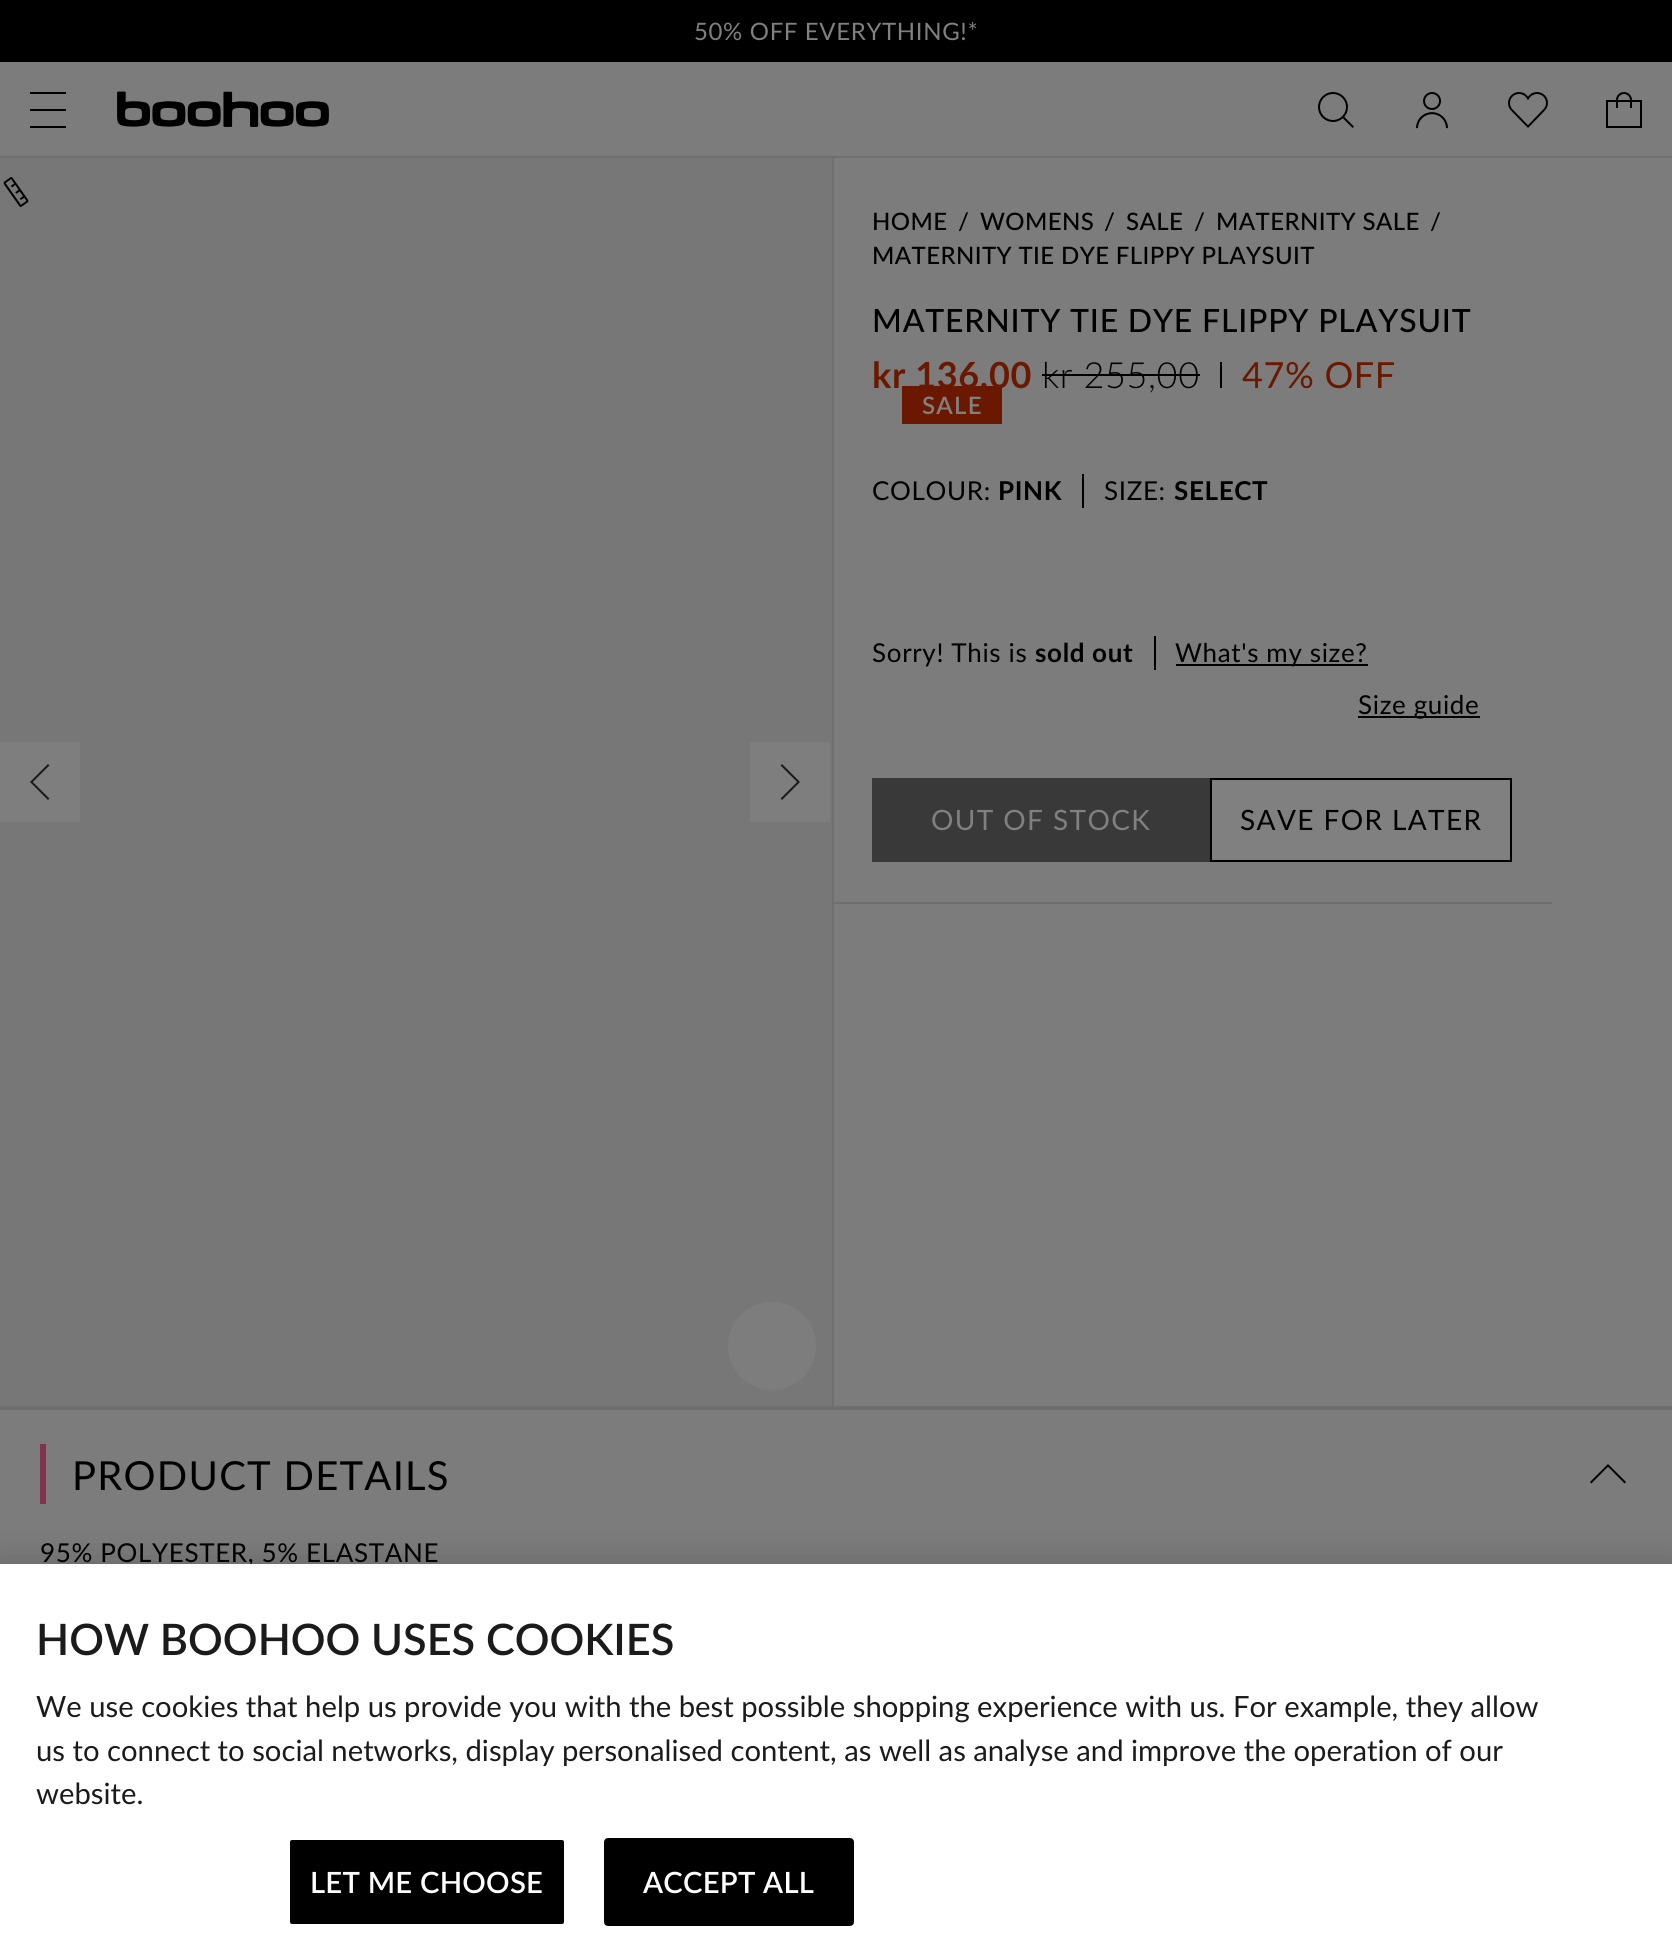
#include <cairo/cairo.h>
#include <math.h>
#include <stddef.h>

typedef struct { double x, y; const char *s; } line_t;
typedef struct { double x, y, w, h; unsigned color; } box_t;
static cairo_t *cr;

static void rgb(unsigned color)
{
	cairo_set_source_rgb(cr, (color >> 16) / 255.0, (color >> 8 & 255) / 255.0, (color & 255) / 255.0);
}

static void tracked(double x, double y, const char *s, double letter, double word)
{
	cairo_move_to(cr, x, y);
	while (*s) {
		char ch[5] = {0};
		int n = 0;
		do ch[n++] = *s++; while ((*s & 0xC0) == 0x80);
		cairo_show_text(cr, ch);
		cairo_rel_move_to(cr, letter + word * (*ch == ' '), 0);
	}
}

static void rrect(double x, double y, double w, double h, double r)
{
	cairo_new_sub_path(cr);
	cairo_arc(cr, x + w - r, y + h - r, r, 0, M_PI / 2);
	cairo_arc(cr, x + r, y + h - r, r, M_PI / 2, M_PI);
	cairo_arc(cr, x + r, y + r, r, M_PI, 1.5 * M_PI);
	cairo_arc(cr, x + w - r, y + r, r, 1.5 * M_PI, 2 * M_PI);
	cairo_close_path(cr);
}

static void soft_shadow(double x, double y, double w, double h, double r, double blur, double alpha)
{
	cairo_push_group_with_content(cr, CAIRO_CONTENT_ALPHA);
	cairo_set_operator(cr, CAIRO_OPERATOR_SOURCE);
	for (int i = 15; i >= -15 && fmin(w, h) + blur * i / 3 > 0; i -= 2) {
		double e = blur * i / 6;
		cairo_set_source_rgba(cr, 0, 0, 0, alpha * erfc((i - 1) / 8.5) / 2);
		rrect(x - e, y - e, w + 2 * e, h + 2 * e, fmax(0, fmin(r + e + blur * .6, fmin(w, h) / 2 + e)));
		cairo_fill(cr);
	}
	cairo_pattern_t *soft = cairo_pop_group(cr);
	cairo_mask(cr, soft);
	cairo_pattern_destroy(soft);
}

static void image(const char *path, double x, double y, double w, double h)
{
	cairo_surface_t *image = cairo_image_surface_create_from_png(path);
	cairo_save(cr);
	cairo_set_source_surface(cr, image, x, y);
	cairo_rectangle(cr, x, y, w, h);
	cairo_fill(cr);
	cairo_restore(cr);
	cairo_surface_destroy(image);
}

int main(void) {
	cairo_surface_t *surface = cairo_image_surface_create(CAIRO_FORMAT_RGB24, 1672, 1952);
	cr = cairo_create(surface);
	cairo_font_options_t *options = cairo_font_options_create();
	cairo_font_options_set_hint_metrics(options, CAIRO_HINT_METRICS_OFF);
	cairo_font_options_set_hint_style(options, CAIRO_HINT_STYLE_NONE);
	cairo_set_font_options(cr, options);
	cairo_set_miter_limit(cr, 4);
	rgb(0x7c7c7c);
	cairo_paint(cr);
	{
		static const box_t items[] = {
			{0, 0, 1672, 62, 0x000000},
			{30, 92, 36, 2, 0x000000},
			{30, 126, 36, 2, 0x000000},
			{30, 109, 36, 2, 0x000000},
		};
		for (size_t i = 0; i < sizeof items / sizeof *items; i++) {
			rgb(items[i].color);
			cairo_rectangle(cr, items[i].x, items[i].y, items[i].w, items[i].h);
			cairo_fill(cr);
		}
	}
	image("img/1.png", 117, 91, 212, 36);
	image("img/2.png", 1318, 92, 36, 36);
	image("img/3.png", 1416, 92, 32, 37);
	image("img/4.png", 1508, 92, 40, 36);
	image("img/5.png", 1606, 92, 36, 36);
	cairo_rectangle(cr, -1, 157, 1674, 1250);
	rgb(0x6f6f6f);
	cairo_stroke(cr);
	cairo_rectangle(cr, 832, 902, 720, 2);
	cairo_fill(cr);
	cairo_rectangle(cr, -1, 157, 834, 1250);
	cairo_stroke(cr);
	rgb(0x787778);
	cairo_rectangle(cr, 0, 158, 832, 1248);
	cairo_fill(cr);
	rgb(0x7e7e7e);
	cairo_rectangle(cr, 0, 742, 80, 80);
	cairo_fill(cr);
	image("img/6.png", 30, 764, 20, 36);
	cairo_rectangle(cr, 750, 742, 80, 80);
	cairo_fill(cr);
	image("img/7.png", 780, 764, 20, 36);
	rgb(0x7d7d7d);
	cairo_arc(cr, 772, 1346, 44, 0, 2 * M_PI);
	cairo_fill(cr);
	{
		static const box_t items[] = {
			{1042, 374, 158, 2, 0x000000},
			{1220, 362, 2, 26, 0x000000},
			{902, 386, 100, 38, 0x6a1900},
			{1082, 474, 2, 34, 0x000000},
			{1154, 636, 2, 34, 0x000000},
		};
		for (size_t i = 0; i < sizeof items / sizeof *items; i++) {
			rgb(items[i].color);
			cairo_rectangle(cr, items[i].x, items[i].y, items[i].w, items[i].h);
			cairo_fill(cr);
		}
	}
	image("img/8.png", 3, 177, 26, 30);
	{
		static const box_t items[] = {
			{1176, 664, 192, 2, 0x000000},
			{1358, 716, 122, 2, 0x000000},
			{872, 778, 338, 84, 0x393939},
		};
		for (size_t i = 0; i < sizeof items / sizeof *items; i++) {
			rgb(items[i].color);
			cairo_rectangle(cr, items[i].x, items[i].y, items[i].w, items[i].h);
			cairo_fill(cr);
		}
	}
	rgb(0x808080);
	cairo_rectangle(cr, 1211, 779, 300, 82);
	cairo_fill_preserve(cr);
	rgb(0x000000);
	cairo_stroke(cr);
	rgb(0x6f6f6f);
	cairo_rectangle(cr, 0, 1408, 1672, 2);
	cairo_fill(cr);
	rgb(0x80334d);
	cairo_rectangle(cr, 40, 1444, 6, 60);
	cairo_fill(cr);
	image("img/9.png", 1590, 1464, 36, 20);
	rgb(0x000000);
	soft_shadow(0, 1564, 1672, 388, 0, 18, 0.2);
	cairo_select_font_face(cr, "Lato", CAIRO_FONT_SLANT_NORMAL, CAIRO_FONT_WEIGHT_NORMAL);
	cairo_set_font_size(cr, 24);
	rgb(0x808080);
	tracked(694, 40, "50% OFF EVERYTHING!*", 0.65, 0);
	cairo_select_font_face(cr, "Lato Medium", CAIRO_FONT_SLANT_NORMAL, CAIRO_FONT_WEIGHT_NORMAL);
	rgb(0x000000);
	{
		static const line_t items[] = {
			{872, 230, "HOME"},
			{958, 230, "/"},
			{980, 230, "WOMENS"},
			{1104, 230, "/"},
			{1126, 230, "SALE"},
			{1194, 230, "/"},
			{1216, 230, "MATERNITY SALE"},
			{1430, 230, "/"},
			{872, 264, "MATERNITY TIE DYE FLIPPY PLAYSUIT"},
		};
		for (size_t i = 0; i < sizeof items / sizeof *items; i++) {
			tracked(items[i].x, items[i].y, items[i].s, 0.4, 0);
		}
	}
	cairo_set_font_size(cr, 32);
	tracked(872, 332, "MATERNITY TIE DYE FLIPPY PLAYSUIT", 0.8, 0);
	cairo_select_font_face(cr, "Lato", CAIRO_FONT_SLANT_NORMAL, CAIRO_FONT_WEIGHT_BOLD);
	cairo_set_font_size(cr, 36);
	rgb(0x6a1900);
	tracked(872, 388, "kr 136,00", 0.65, 0);
	cairo_select_font_face(cr, "Lato Light", CAIRO_FONT_SLANT_NORMAL, CAIRO_FONT_WEIGHT_NORMAL);
	rgb(0x000000);
	tracked(1042, 388, "kr 255,00", 0.65, 0);
	cairo_select_font_face(cr, "Lato", CAIRO_FONT_SLANT_NORMAL, CAIRO_FONT_WEIGHT_NORMAL);
	rgb(0x6a1900);
	tracked(1242, 388, "47% OFF", 0.65, 0);
	cairo_select_font_face(cr, "Lato SemiBold", CAIRO_FONT_SLANT_NORMAL, CAIRO_FONT_WEIGHT_NORMAL);
	cairo_set_font_size(cr, 24);
	rgb(0x808080);
	tracked(922, 414, "SALE", 1.25, 0);
	cairo_select_font_face(cr, "Lato", CAIRO_FONT_SLANT_NORMAL, CAIRO_FONT_WEIGHT_NORMAL);
	cairo_set_font_size(cr, 26);
	rgb(0x000000);
	tracked(872, 500, "COLOUR:", 0.65, 0);
	cairo_select_font_face(cr, "Lato", CAIRO_FONT_SLANT_NORMAL, CAIRO_FONT_WEIGHT_BOLD);
	tracked(998, 500, "PINK", 0.65, 0);
	cairo_select_font_face(cr, "Lato", CAIRO_FONT_SLANT_NORMAL, CAIRO_FONT_WEIGHT_NORMAL);
	tracked(1104, 500, "SIZE:", 0.65, 0);
	cairo_select_font_face(cr, "Lato", CAIRO_FONT_SLANT_NORMAL, CAIRO_FONT_WEIGHT_BOLD);
	tracked(1174, 500, "SELECT", 0.65, 0);
	cairo_select_font_face(cr, "Lato", CAIRO_FONT_SLANT_NORMAL, CAIRO_FONT_WEIGHT_NORMAL);
	tracked(872, 662, "Sorry! This is", 0.65, 0);
	cairo_select_font_face(cr, "Lato", CAIRO_FONT_SLANT_NORMAL, CAIRO_FONT_WEIGHT_BOLD);
	tracked(1035, 662, "sold out", 0.65, 0);
	cairo_select_font_face(cr, "Lato", CAIRO_FONT_SLANT_NORMAL, CAIRO_FONT_WEIGHT_NORMAL);
	tracked(1175, 662, "What's my size?", 0.65, 0);
	tracked(1358, 714, "Size guide", 0.65, 0);
	cairo_set_font_size(cr, 28);
	rgb(0x808080);
	tracked(931, 830, "OUT OF STOCK", 1.4, 0);
	rgb(0x000000);
	tracked(1240, 830, "SAVE FOR LATER", 1.4, 0);
	cairo_set_font_size(cr, 40);
	tracked(72, 1490, "PRODUCT DETAILS", 1.25, 0);
	cairo_set_font_size(cr, 26);
	tracked(40, 1562, "95% POLYESTER, 5% ELASTANE", 0.65, 0);
	rgb(0xffffff);
	cairo_rectangle(cr, 0, 1564, 1672, 388);
	cairo_fill(cr);
	cairo_select_font_face(cr, "Lato SemiBold", CAIRO_FONT_SLANT_NORMAL, CAIRO_FONT_WEIGHT_NORMAL);
	cairo_set_font_size(cr, 43.25);
	rgb(0x1b1b1b);
	cairo_move_to(cr, 36, 1655);
	cairo_show_text(cr, "HOW BOOHOO USES COOKIES");
	cairo_select_font_face(cr, "Lato", CAIRO_FONT_SLANT_NORMAL, CAIRO_FONT_WEIGHT_NORMAL);
	cairo_set_font_size(cr, 29.27);
	{
		static const line_t items[] = {
			{36, 1717, "We use cookies that help us provide you with the best possible shopping experience with us. For example, they allow"},
			{36, 1761, "us to connect to social networks, display personalised content, as well as analyse and improve the operation of our"},
			{36, 1804, "website."},
		};
		for (size_t i = 0; i < sizeof items / sizeof *items; i++) {
			cairo_move_to(cr, items[i].x, items[i].y);
			cairo_show_text(cr, items[i].s);
		}
	}
	rgb(0x000000);
	rrect(289, 1839, 276, 86, 3);
	cairo_fill_preserve(cr);
	rgb(0xffffff);
	cairo_stroke(cr);
	cairo_select_font_face(cr, "Lato SemiBold", CAIRO_FONT_SLANT_NORMAL, CAIRO_FONT_WEIGHT_NORMAL);
	tracked(310, 1893, "LET ME CHOOSE", 0.25, 0);
	rgb(0x000000);
	rrect(605, 1839, 248, 86, 3);
	cairo_fill_preserve(cr);
	cairo_stroke(cr);
	rgb(0xffffff);
	tracked(643, 1893, "ACCEPT ALL", 0.25, 0);
	cairo_surface_write_to_png(surface, "page.png");
	cairo_font_options_destroy(options);
	cairo_destroy(cr);
	cairo_surface_destroy(surface);
	return 0;
}
